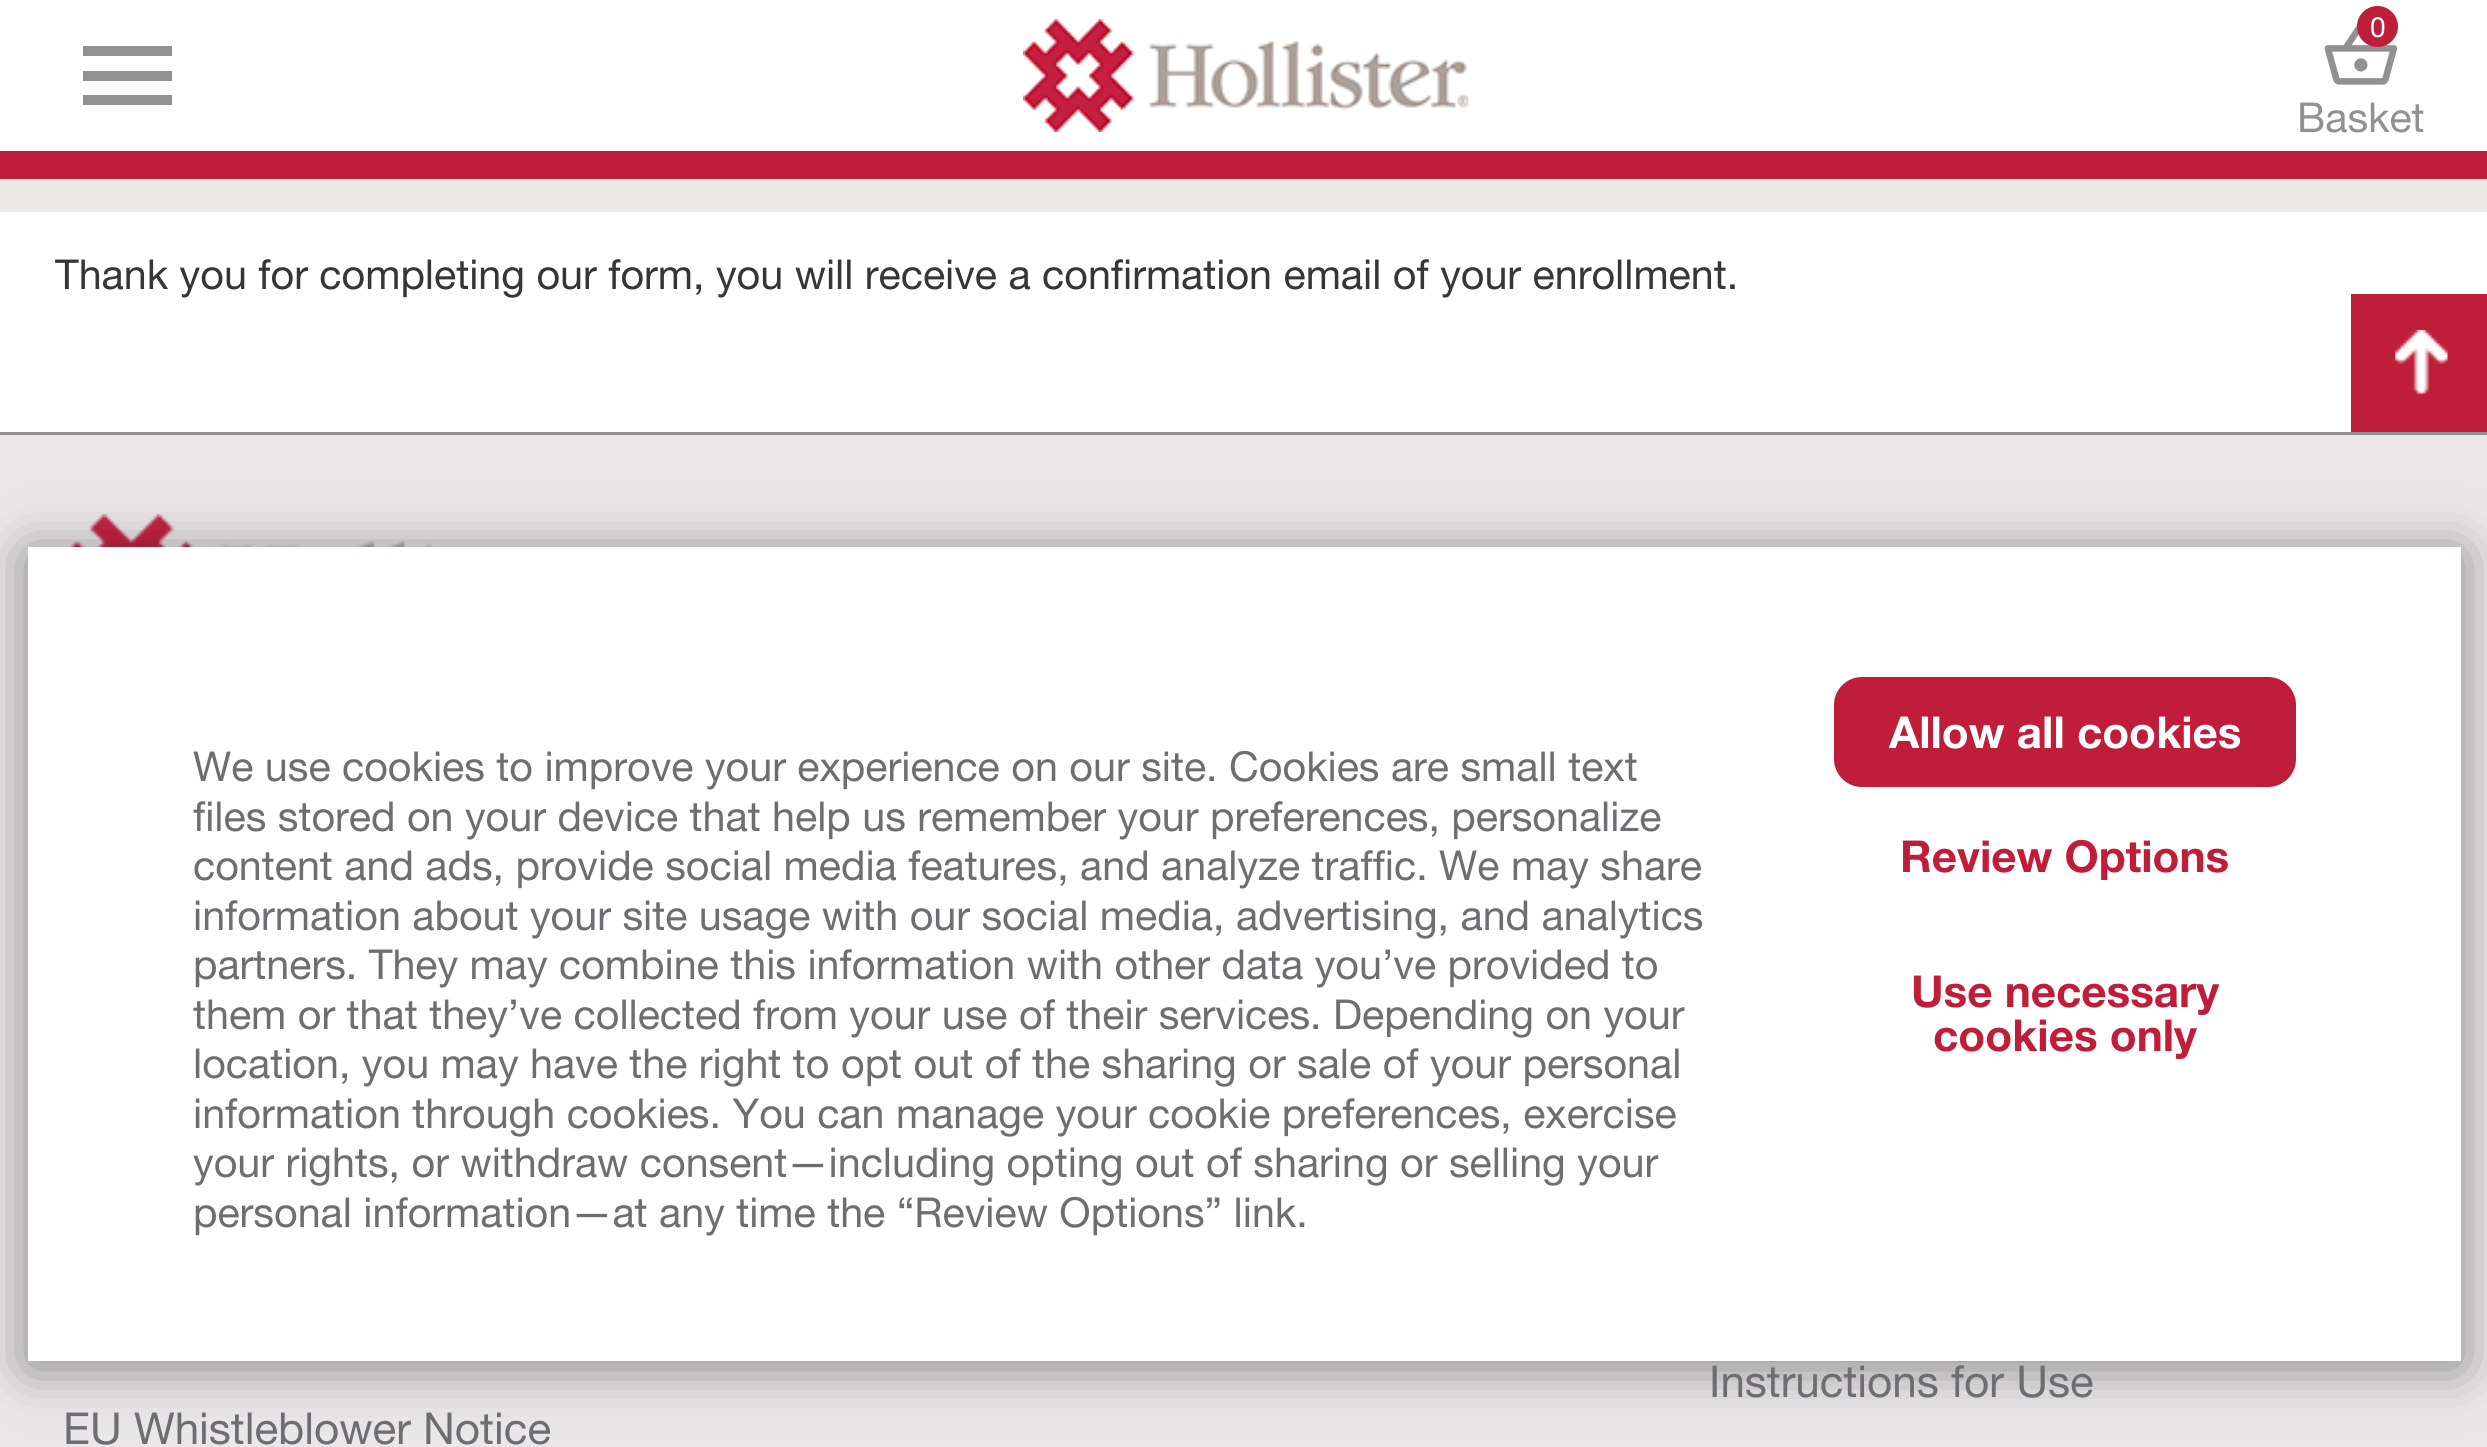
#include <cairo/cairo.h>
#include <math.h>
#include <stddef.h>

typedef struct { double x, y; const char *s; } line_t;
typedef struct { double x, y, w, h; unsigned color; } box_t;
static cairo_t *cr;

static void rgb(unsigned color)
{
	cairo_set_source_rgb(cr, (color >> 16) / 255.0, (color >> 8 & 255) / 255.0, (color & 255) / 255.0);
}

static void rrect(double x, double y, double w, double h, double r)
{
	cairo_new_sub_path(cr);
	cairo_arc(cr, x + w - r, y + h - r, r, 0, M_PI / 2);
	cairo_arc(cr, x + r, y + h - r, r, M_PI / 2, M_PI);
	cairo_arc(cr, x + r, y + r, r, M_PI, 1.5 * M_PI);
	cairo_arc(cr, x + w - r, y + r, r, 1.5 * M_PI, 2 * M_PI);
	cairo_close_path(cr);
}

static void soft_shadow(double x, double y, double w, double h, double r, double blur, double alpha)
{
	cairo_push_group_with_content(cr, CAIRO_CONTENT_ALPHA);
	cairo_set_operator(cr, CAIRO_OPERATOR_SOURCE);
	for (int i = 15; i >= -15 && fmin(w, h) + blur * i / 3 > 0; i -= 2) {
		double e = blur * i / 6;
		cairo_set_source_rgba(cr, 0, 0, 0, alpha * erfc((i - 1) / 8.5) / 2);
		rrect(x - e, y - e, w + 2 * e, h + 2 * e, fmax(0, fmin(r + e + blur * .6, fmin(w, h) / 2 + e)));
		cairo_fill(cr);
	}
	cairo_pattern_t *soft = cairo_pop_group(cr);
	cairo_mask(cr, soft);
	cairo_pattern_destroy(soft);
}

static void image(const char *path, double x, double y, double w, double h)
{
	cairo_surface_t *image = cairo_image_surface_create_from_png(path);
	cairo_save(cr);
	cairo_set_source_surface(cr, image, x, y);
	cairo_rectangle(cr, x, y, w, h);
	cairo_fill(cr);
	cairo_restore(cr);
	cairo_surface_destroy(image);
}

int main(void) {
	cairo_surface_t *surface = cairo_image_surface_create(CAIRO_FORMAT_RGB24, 2487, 1447);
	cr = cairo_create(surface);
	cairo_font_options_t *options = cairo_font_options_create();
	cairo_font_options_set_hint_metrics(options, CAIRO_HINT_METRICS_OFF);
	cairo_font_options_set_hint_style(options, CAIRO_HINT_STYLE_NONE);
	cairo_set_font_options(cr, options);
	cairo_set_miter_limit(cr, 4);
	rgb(0xffffff);
	cairo_paint(cr);
	rgb(0xbf1e39);
	cairo_rectangle(cr, 0, 151, 2487, 28);
	cairo_fill(cr);
	rgb(0x919191);
	cairo_new_path(cr);
	cairo_move_to(cr, 83, 105);
	cairo_line_to(cr, 172, 105);
	cairo_line_to(cr, 172, 95);
	cairo_line_to(cr, 83, 95);
	cairo_close_path(cr);
	cairo_move_to(cr, 83, 81);
	cairo_line_to(cr, 172, 81);
	cairo_line_to(cr, 172, 71);
	cairo_line_to(cr, 83, 71);
	cairo_close_path(cr);
	cairo_move_to(cr, 83, 46);
	cairo_line_to(cr, 83, 56);
	cairo_line_to(cr, 172, 56);
	cairo_line_to(cr, 172, 46);
	cairo_close_path(cr);
	cairo_fill(cr);
	image("img/1.png", 1023, 19, 446, 113);
	image("img/2.png", 2324, 23, 74, 62);
	rgb(0xbf1e39);
	cairo_arc(cr, 2377.5, 26.5, 20.5, 0, 2 * M_PI);
	cairo_fill(cr);
	{
		static const box_t items[] = {
			{0, 179, 2487, 33, 0xebe9e8},
			{0, 435, 2487, 1012, 0xe9e7e7},
			{0, 432, 2487, 3, 0x919191},
			{2351, 294, 136, 138, 0xbf1e39},
		};
		for (size_t i = 0; i < sizeof items / sizeof *items; i++) {
			rgb(items[i].color);
			cairo_rectangle(cr, items[i].x, items[i].y, items[i].w, items[i].h);
			cairo_fill(cr);
		}
	}
	image("img/3.png", 2395, 330, 53, 65);
	image("img/4.png", 68, 514, 367, 33);
	rgb(0x212121);
	soft_shadow(28, 553, 2433, 814, 0, 27.5, 0.5);
	rgb(0xffffff);
	cairo_rectangle(cr, 28, 547, 2433, 814);
	cairo_fill(cr);
	rgb(0xbf1d39);
	rrect(1834, 677, 462, 110, 28);
	cairo_fill(cr);
	cairo_select_font_face(cr, "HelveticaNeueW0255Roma", CAIRO_FONT_SLANT_NORMAL, CAIRO_FONT_WEIGHT_NORMAL);
	cairo_set_font_size(cr, 28);
	rgb(0xffffff);
	cairo_move_to(cr, 2370, 37);
	cairo_show_text(cr, "0");
	cairo_set_font_size(cr, 41.25);
	rgb(0x919191);
	cairo_move_to(cr, 2297, 132);
	cairo_show_text(cr, "Basket");
	rgb(0x363636);
	cairo_move_to(cr, 55, 289);
	cairo_show_text(cr, "Thank you for completing our form, you will receive a confirmation email of your enrollment.");
	cairo_set_font_size(cr, 44);
	rgb(0x6d6e71);
	cairo_move_to(cr, 1709, 1397);
	cairo_show_text(cr, "Instructions for Use");
	cairo_move_to(cr, 63, 1444);
	cairo_show_text(cr, "EU Whistleblower Notice");
	cairo_set_font_size(cr, 41.25);
	{
		static const line_t items[] = {
			{193, 781, "We use cookies to improve your experience on our site. Cookies are small text"},
			{193, 831, "files stored on your device that help us remember your preferences, personalize"},
			{193, 880, "content and ads, provide social media features, and analyze traffic. We may share"},
			{193, 930, "information about your site usage with our social media, advertising, and analytics"},
			{193, 979, "partners. They may combine this information with other data you’ve provided to"},
			{193, 1029, "them or that they’ve collected from your use of their services. Depending on your"},
			{193, 1078, "location, you may have the right to opt out of the sharing or sale of your personal"},
			{193, 1128, "information through cookies. You can manage your cookie preferences, exercise"},
			{193, 1177, "your rights, or withdraw consent—including opting out of sharing or selling your"},
			{193, 1227, "personal information—at any time the “Review Options” link."},
		};
		for (size_t i = 0; i < sizeof items / sizeof *items; i++) {
			cairo_move_to(cr, items[i].x, items[i].y);
			cairo_show_text(cr, items[i].s);
		}
	}
	cairo_select_font_face(cr, "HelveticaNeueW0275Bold", CAIRO_FONT_SLANT_NORMAL, CAIRO_FONT_WEIGHT_BOLD);
	cairo_set_font_size(cr, 44);
	rgb(0xffffff);
	cairo_move_to(cr, 1889, 748);
	cairo_show_text(cr, "Allow all cookies");
	rgb(0xbf1d39);
	{
		static const line_t items[] = {
			{1900, 872, "Review Options"},
			{1911, 1007, "Use necessary"},
			{1933, 1051, "cookies only"},
		};
		for (size_t i = 0; i < sizeof items / sizeof *items; i++) {
			cairo_move_to(cr, items[i].x, items[i].y);
			cairo_show_text(cr, items[i].s);
		}
	}
	cairo_surface_write_to_png(surface, "page.png");
	cairo_font_options_destroy(options);
	cairo_destroy(cr);
	cairo_surface_destroy(surface);
	return 0;
}
